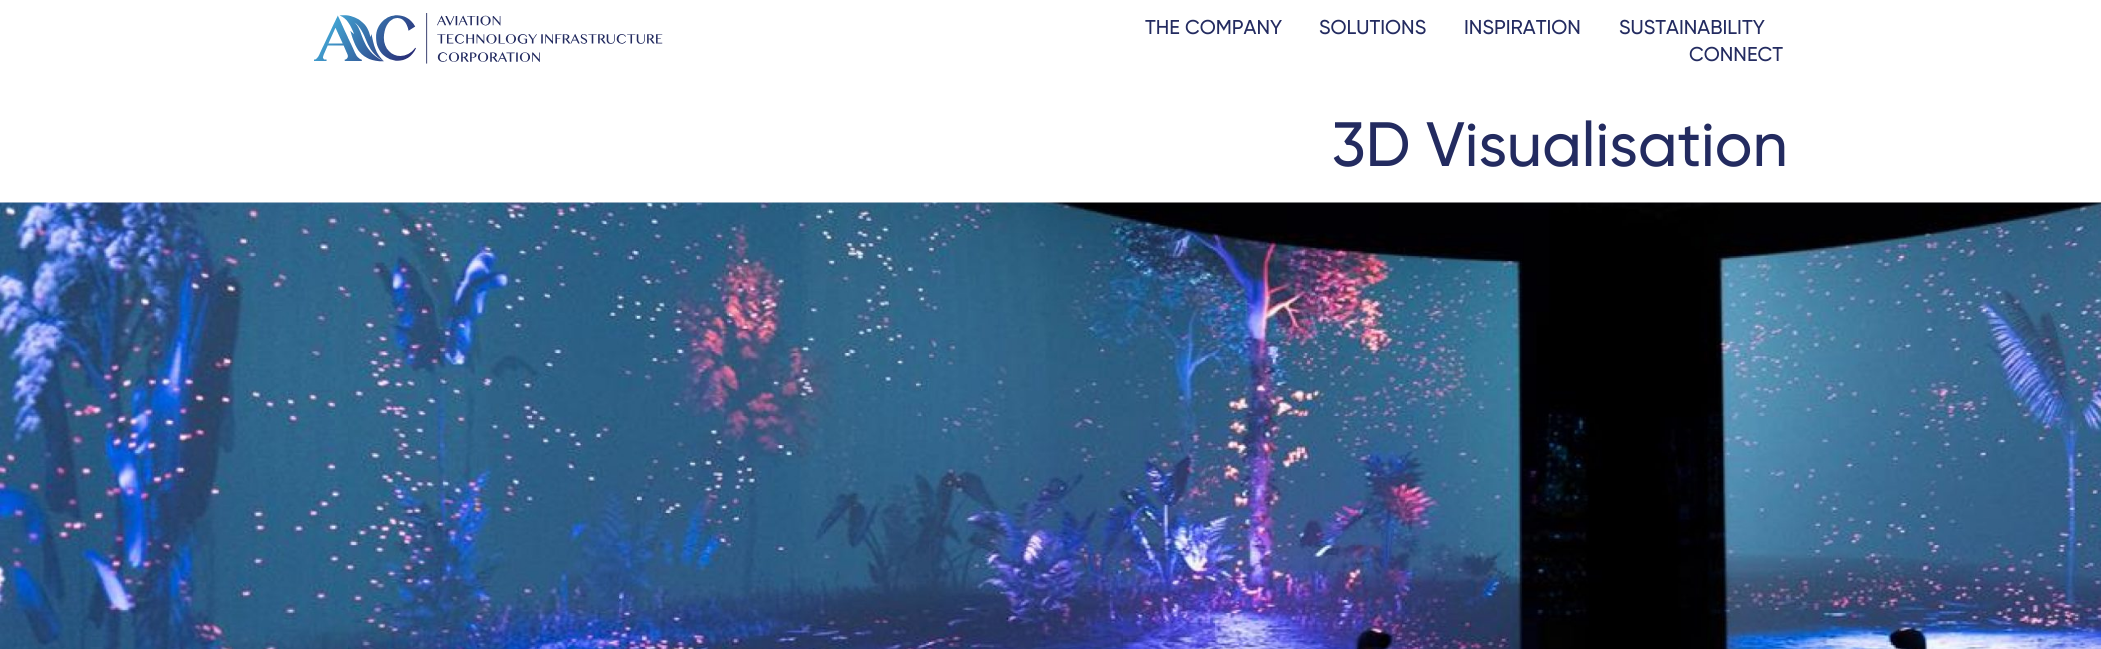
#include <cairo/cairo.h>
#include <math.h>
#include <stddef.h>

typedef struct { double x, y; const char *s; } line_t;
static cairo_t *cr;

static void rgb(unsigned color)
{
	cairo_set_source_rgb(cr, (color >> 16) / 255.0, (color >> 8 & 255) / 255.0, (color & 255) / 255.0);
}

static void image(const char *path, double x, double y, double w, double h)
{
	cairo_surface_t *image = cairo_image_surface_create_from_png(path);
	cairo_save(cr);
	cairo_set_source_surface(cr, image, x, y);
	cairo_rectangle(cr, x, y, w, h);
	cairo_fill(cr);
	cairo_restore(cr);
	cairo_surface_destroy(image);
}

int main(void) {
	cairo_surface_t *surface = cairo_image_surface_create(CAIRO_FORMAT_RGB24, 2101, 649);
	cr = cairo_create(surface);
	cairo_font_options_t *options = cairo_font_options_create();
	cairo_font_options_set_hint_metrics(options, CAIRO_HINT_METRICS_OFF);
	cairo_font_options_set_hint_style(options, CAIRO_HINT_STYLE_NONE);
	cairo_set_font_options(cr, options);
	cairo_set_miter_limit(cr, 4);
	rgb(0xffffff);
	cairo_paint(cr);
	image("img/1.png", 314, 13, 349, 51);
	image("img/2.png", 0, 202, 2101, 447);
	cairo_select_font_face(cr, "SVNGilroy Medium", CAIRO_FONT_SLANT_NORMAL, CAIRO_FONT_WEIGHT_NORMAL);
	cairo_set_font_size(cr, 20);
	rgb(0x232b60);
	{
		static const line_t items[] = {
			{1145, 34, "THE COMPANY"},
			{1319, 34, "SOLUTIONS"},
			{1464, 34, "INSPIRATION"},
			{1619, 34, "SUSTAINABILITY"},
			{1689, 61, "CONNECT"},
		};
		for (size_t i = 0; i < sizeof items / sizeof *items; i++) {
			cairo_move_to(cr, items[i].x, items[i].y);
			cairo_show_text(cr, items[i].s);
		}
	}
	cairo_set_font_size(cr, 62.5);
	cairo_move_to(cr, 1332, 166);
	cairo_show_text(cr, "3D Visualisation");
	cairo_surface_write_to_png(surface, "page.png");
	cairo_font_options_destroy(options);
	cairo_destroy(cr);
	cairo_surface_destroy(surface);
	return 0;
}
